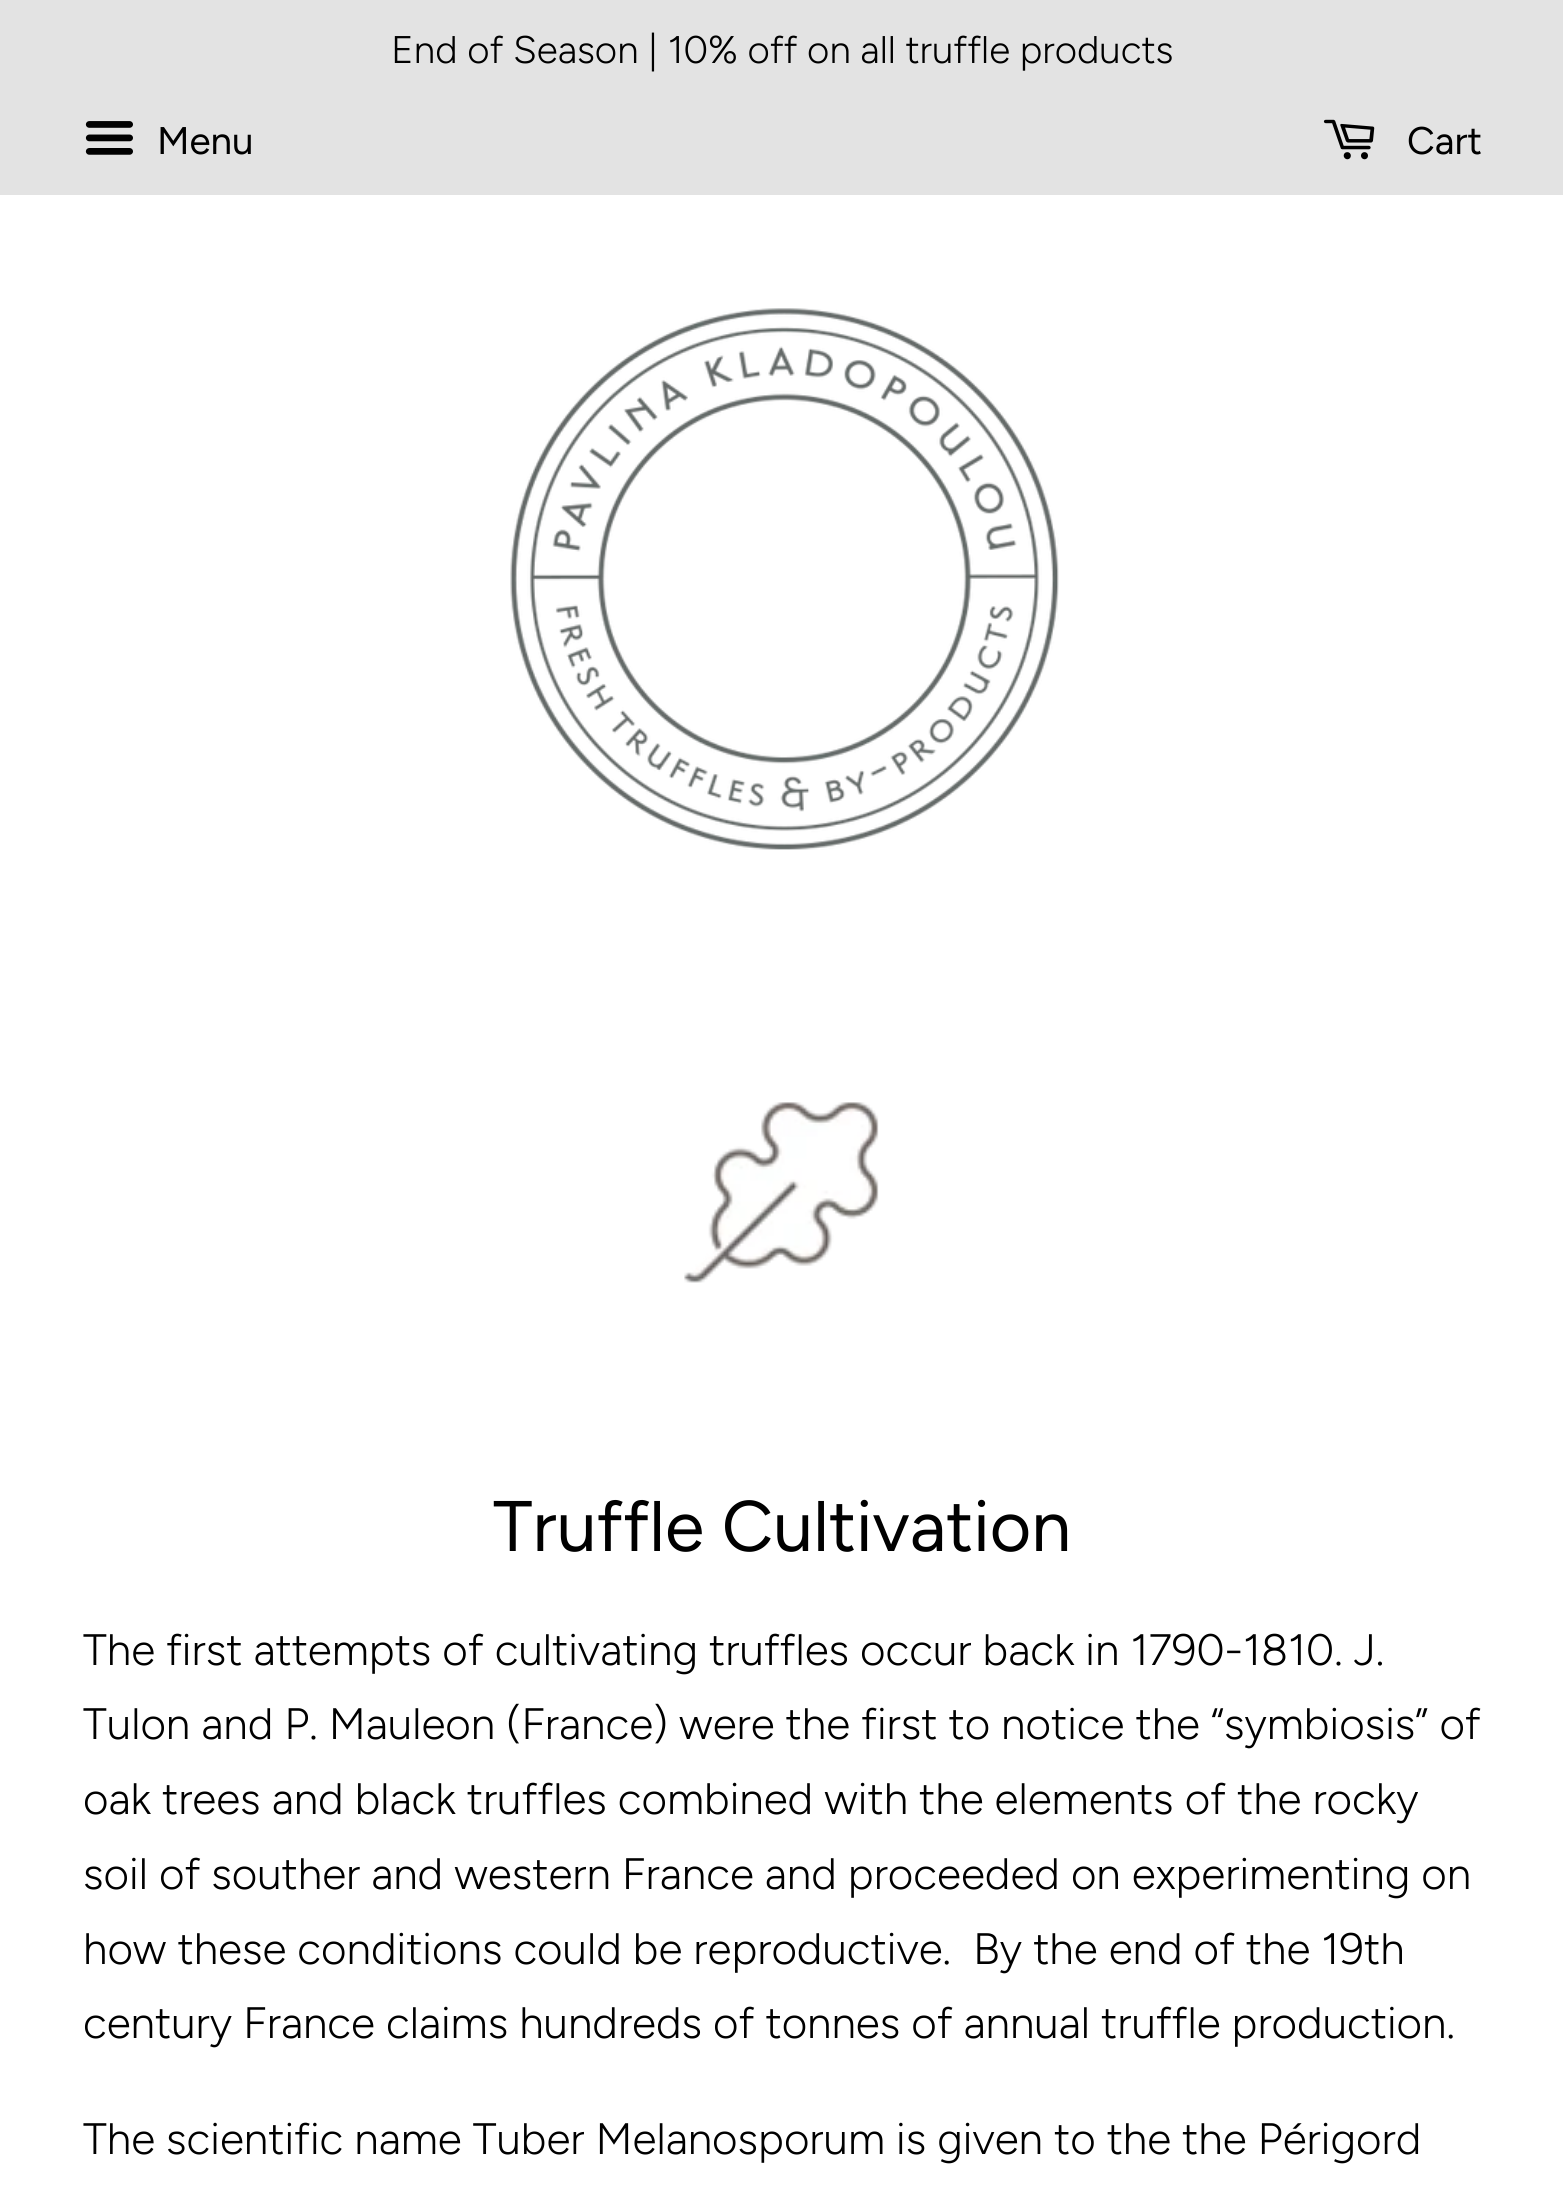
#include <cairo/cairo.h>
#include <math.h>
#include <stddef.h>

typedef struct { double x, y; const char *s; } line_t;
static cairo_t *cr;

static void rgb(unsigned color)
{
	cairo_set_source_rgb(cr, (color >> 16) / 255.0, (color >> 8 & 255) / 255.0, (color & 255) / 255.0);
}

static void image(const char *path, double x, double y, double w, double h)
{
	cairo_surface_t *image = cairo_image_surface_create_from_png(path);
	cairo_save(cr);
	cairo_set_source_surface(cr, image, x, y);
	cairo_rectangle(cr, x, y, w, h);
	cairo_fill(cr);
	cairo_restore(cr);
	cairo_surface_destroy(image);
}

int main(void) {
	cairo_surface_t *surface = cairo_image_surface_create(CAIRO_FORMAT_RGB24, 1563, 2205);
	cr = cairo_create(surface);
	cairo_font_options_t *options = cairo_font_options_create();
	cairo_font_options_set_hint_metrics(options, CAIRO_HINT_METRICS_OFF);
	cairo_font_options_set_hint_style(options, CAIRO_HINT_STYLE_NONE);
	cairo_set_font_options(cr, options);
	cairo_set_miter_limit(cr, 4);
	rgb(0xffffff);
	cairo_paint(cr);
	rgb(0xe3e3e3);
	cairo_rectangle(cr, 0, 0, 1563, 195);
	cairo_fill(cr);
	image("img/1.png", 85, 121, 48, 34);
	image("img/2.png", 1323, 119, 52, 41);
	image("img/3.png", 510, 308, 549, 542);
	image("img/4.png", 684, 1102, 195, 181);
	cairo_select_font_face(cr, "Figtree Light", CAIRO_FONT_SLANT_NORMAL, CAIRO_FONT_WEIGHT_NORMAL);
	cairo_set_font_size(cr, 38.5);
	rgb(0x000000);
	cairo_move_to(cr, 391, 63);
	cairo_show_text(cr, "End of Season | 10% off on all truffle products");
	cairo_select_font_face(cr, "Figtree", CAIRO_FONT_SLANT_NORMAL, CAIRO_FONT_WEIGHT_NORMAL);
	cairo_move_to(cr, 157, 154);
	cairo_show_text(cr, "Menu");
	cairo_move_to(cr, 1407, 154);
	cairo_show_text(cr, "Cart");
	cairo_set_font_size(cr, 71.5);
	cairo_move_to(cr, 493, 1551);
	cairo_show_text(cr, "Truffle Cultivation");
	cairo_select_font_face(cr, "Figtree Light", CAIRO_FONT_SLANT_NORMAL, CAIRO_FONT_WEIGHT_NORMAL);
	cairo_set_font_size(cr, 44);
	{
		static const line_t items[] = {
			{83, 1665, "The first attempts of cultivating truffles occur back in 1790-1810. J."},
			{83, 1739, "Tulon and P. Mauleon (France) were the first to notice the “symbiosis” of"},
			{83, 1814, "oak trees and black truffles combined with the elements of the rocky"},
			{83, 1889, "soil of souther and western France and proceeded on experimenting on"},
			{83, 1964, "how these conditions could be reproductive.  By the end of the 19th"},
			{83, 2038, "century France claims hundreds of tonnes of annual truffle production."},
			{83, 2154, "The scientific name Tuber Melanosporum is given to the the Périgord"},
		};
		for (size_t i = 0; i < sizeof items / sizeof *items; i++) {
			cairo_move_to(cr, items[i].x, items[i].y);
			cairo_show_text(cr, items[i].s);
		}
	}
	cairo_surface_write_to_png(surface, "page.png");
	cairo_font_options_destroy(options);
	cairo_destroy(cr);
	cairo_surface_destroy(surface);
	return 0;
}
